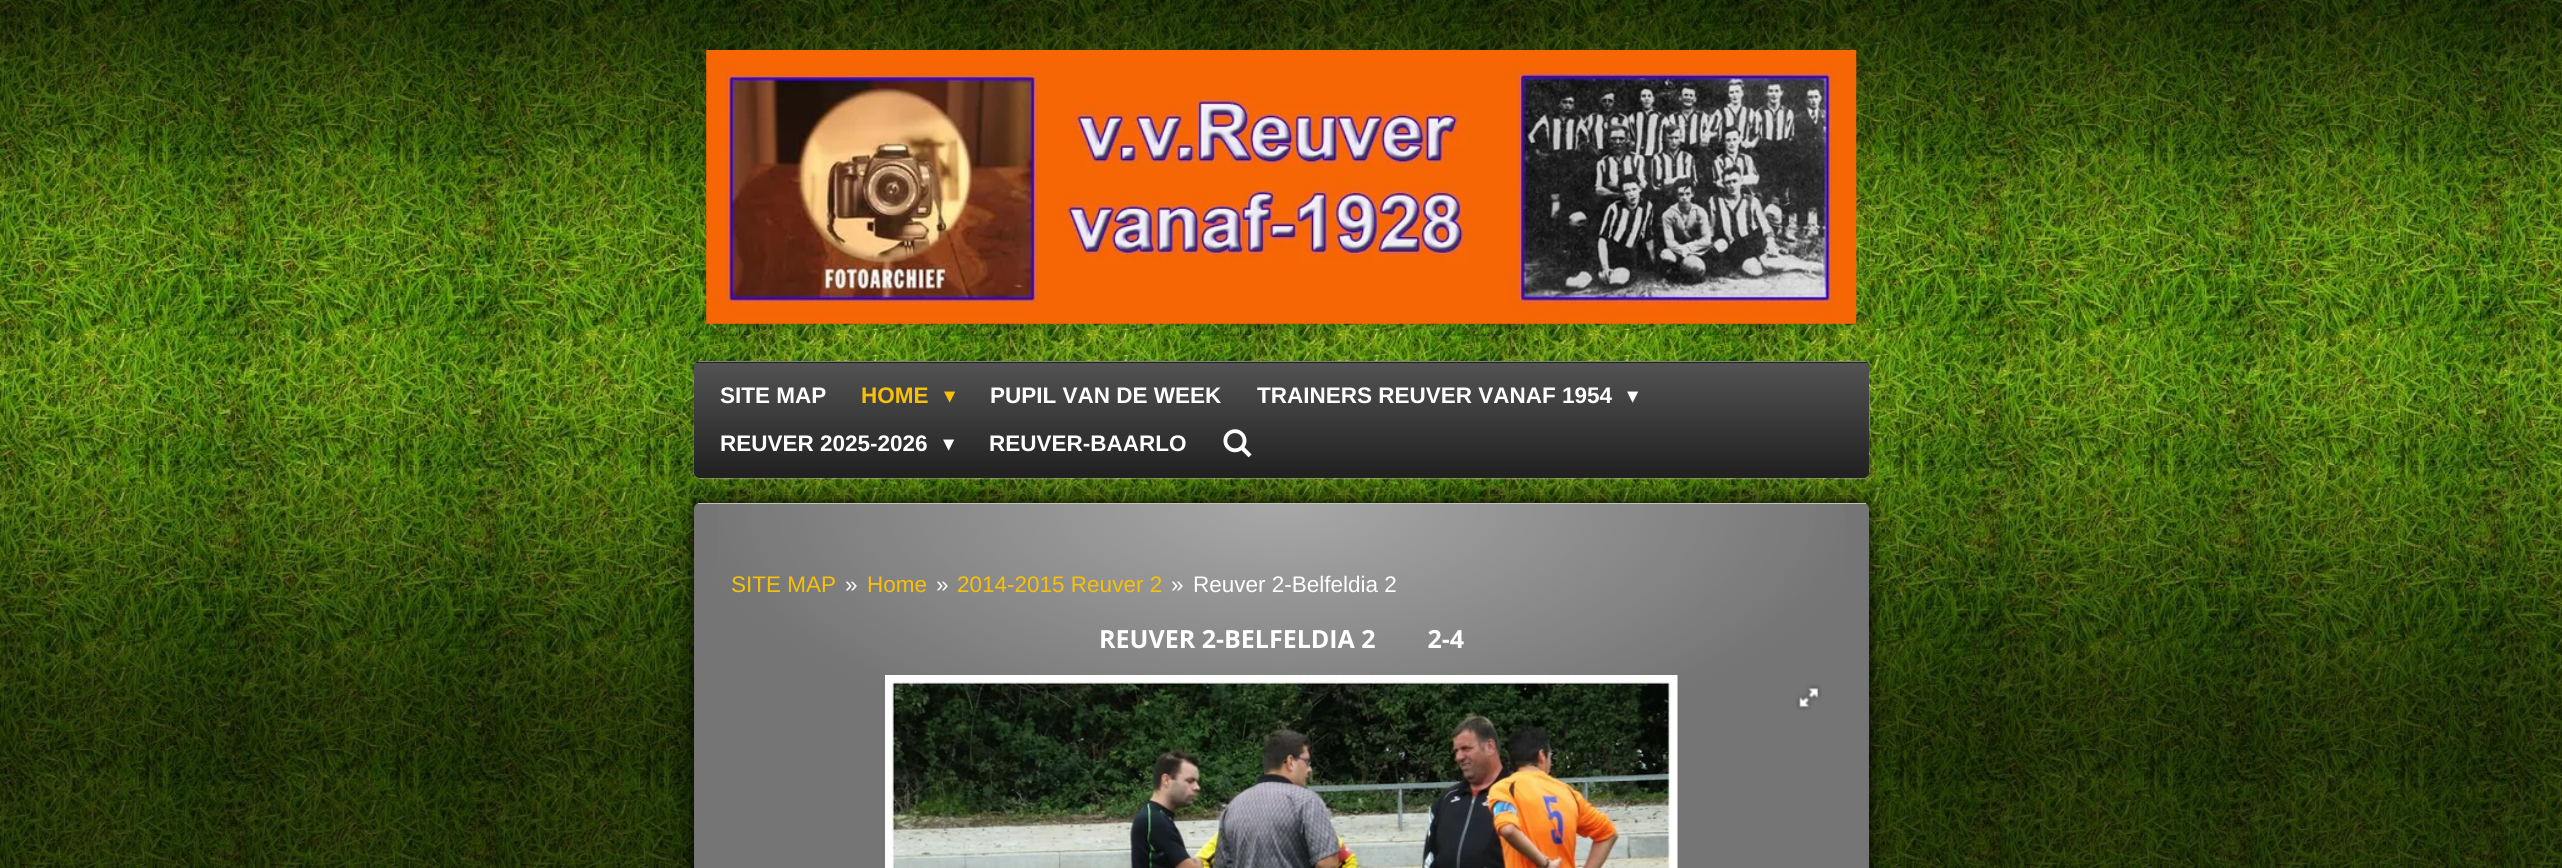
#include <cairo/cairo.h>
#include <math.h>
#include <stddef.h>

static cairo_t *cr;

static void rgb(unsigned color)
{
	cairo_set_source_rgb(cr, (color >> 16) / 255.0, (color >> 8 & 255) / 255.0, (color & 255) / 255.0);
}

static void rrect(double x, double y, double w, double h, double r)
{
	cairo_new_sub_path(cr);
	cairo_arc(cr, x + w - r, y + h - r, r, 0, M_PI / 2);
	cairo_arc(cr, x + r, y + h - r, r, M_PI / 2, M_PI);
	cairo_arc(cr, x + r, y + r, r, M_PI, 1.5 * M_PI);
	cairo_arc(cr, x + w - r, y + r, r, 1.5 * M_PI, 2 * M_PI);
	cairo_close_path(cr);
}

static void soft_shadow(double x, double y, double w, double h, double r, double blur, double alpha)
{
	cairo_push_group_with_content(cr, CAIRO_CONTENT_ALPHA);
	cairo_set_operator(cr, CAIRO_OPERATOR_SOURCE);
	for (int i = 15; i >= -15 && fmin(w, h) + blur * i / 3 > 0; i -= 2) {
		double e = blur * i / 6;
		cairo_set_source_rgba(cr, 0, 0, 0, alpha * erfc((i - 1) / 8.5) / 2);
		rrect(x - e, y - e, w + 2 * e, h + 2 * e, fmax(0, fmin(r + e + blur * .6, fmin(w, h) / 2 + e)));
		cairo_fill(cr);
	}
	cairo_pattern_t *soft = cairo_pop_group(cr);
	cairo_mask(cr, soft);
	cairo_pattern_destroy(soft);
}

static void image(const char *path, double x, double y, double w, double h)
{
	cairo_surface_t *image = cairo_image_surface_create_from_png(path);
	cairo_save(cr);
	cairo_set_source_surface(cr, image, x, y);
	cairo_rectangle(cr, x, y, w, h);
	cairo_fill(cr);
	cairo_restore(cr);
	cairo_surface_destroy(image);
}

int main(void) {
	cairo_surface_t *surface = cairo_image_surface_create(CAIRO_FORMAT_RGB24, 2562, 868);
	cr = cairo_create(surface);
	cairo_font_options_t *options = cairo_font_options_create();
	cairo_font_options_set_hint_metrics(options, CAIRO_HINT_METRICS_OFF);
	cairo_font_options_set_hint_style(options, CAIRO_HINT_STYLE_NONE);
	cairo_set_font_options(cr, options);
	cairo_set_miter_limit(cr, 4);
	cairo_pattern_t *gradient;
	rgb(0xffffff);
	cairo_paint(cr);
	image("img/1.png", 0, 0, 2562, 868);
	cairo_set_source_rgba(cr, 0, 0, 0, 0.6);
	cairo_rectangle(cr, 0, 0, 2562, 25);
	cairo_fill(cr);
	image("img/2.png", 706, 50, 1151, 274);
	rgb(0xffffff);
	soft_shadow(694, 363, 1175, 116, 6, 0.5, 0.3);
	rgb(0x202020);
	rrect(694, 361, 1175, 117, 6);
	cairo_fill(cr);
	cairo_save(cr);
	rrect(694, 361, 1175, 117, 6);
	cairo_clip(cr);
	gradient = cairo_pattern_create_linear(1281, 363, 1281, 248);
	cairo_pattern_add_color_stop_rgba(gradient, 0, 0.125, 0.125, 0.125, 1);
	cairo_pattern_add_color_stop_rgba(gradient, 1, 0.325, 0.325, 0.325, 1);
	cairo_set_source(cr, gradient);
	cairo_pattern_destroy(gradient);
	cairo_rectangle(cr, 694, 361, 1175, 2);
	cairo_fill(cr);
	gradient = cairo_pattern_create_linear(1281, 478, 1281, 363);
	cairo_pattern_add_color_stop_rgba(gradient, 0, 0.125, 0.125, 0.125, 1);
	cairo_pattern_add_color_stop_rgba(gradient, 1, 0.325, 0.325, 0.325, 1);
	cairo_set_source(cr, gradient);
	cairo_pattern_destroy(gradient);
	cairo_new_path(cr);
	cairo_move_to(cr, 694, 363);
	cairo_line_to(cr, 1869, 363);
	cairo_line_to(cr, 1869, 472);
	cairo_curve_to(cr, 1869, 475.5, 1866.5, 478, 1863, 478);
	cairo_line_to(cr, 700, 478);
	cairo_curve_to(cr, 696.5, 478, 694, 475.5, 694, 472);
	cairo_close_path(cr);
	cairo_fill(cr);
	cairo_restore(cr);
	rgb(0x818181);
	cairo_rectangle(cr, 698, 361, 1168, 1);
	cairo_fill(cr);
	image("img/3.png", 1223, 429, 29, 29);
	cairo_set_source_rgba(cr, 0, 0, 0, 0.6);
	cairo_rectangle(cr, 0, 700, 2562, 168);
	cairo_fill(cr);
	rgb(0x000000);
	soft_shadow(694, 503, 1175, 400, 6, 9.5, 1);
	rgb(0x757575);
	rrect(694, 503, 1175, 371, 6);
	cairo_fill(cr);
	rgb(0xc2c2c2);
	cairo_rectangle(cr, 698, 503, 1168, 1);
	cairo_fill(cr);
	gradient = cairo_pattern_create_radial(0, 0, 0, 0, 0, 1);
	cairo_pattern_set_matrix(gradient, &(cairo_matrix_t){1.0 / 588, 0, 0, 1.0 / 250, -1.0 * 1281 / 588, -1.0 * 504 / 250});
	cairo_pattern_add_color_stop_rgba(gradient, 0, 0.659, 0.659, 0.659, 1);
	cairo_pattern_add_color_stop_rgba(gradient, 1, 0.659, 0.659, 0.659, 0);
	cairo_set_source(cr, gradient);
	cairo_pattern_destroy(gradient);
	cairo_rectangle(cr, 717, 504, 1128, 178);
	cairo_fill(cr);
	image("img/4.png", 885, 675, 793, 193);
	image("img/5.png", 1795, 684, 27, 27);
	cairo_select_font_face(cr, "Liberation Sans", CAIRO_FONT_SLANT_NORMAL, CAIRO_FONT_WEIGHT_BOLD);
	cairo_set_font_size(cr, 22.5);
	rgb(0xffffff);
	cairo_move_to(cr, 720, 403);
	cairo_show_text(cr, "SITE MAP");
	rgb(0xf8c107);
	cairo_move_to(cr, 861, 403);
	cairo_show_text(cr, "HOME");
	cairo_select_font_face(cr, "DejaVu Sans", CAIRO_FONT_SLANT_NORMAL, CAIRO_FONT_WEIGHT_NORMAL);
	cairo_move_to(cr, 944, 403);
	cairo_show_text(cr, "▾");
	cairo_select_font_face(cr, "Liberation Sans", CAIRO_FONT_SLANT_NORMAL, CAIRO_FONT_WEIGHT_BOLD);
	rgb(0xffffff);
	cairo_move_to(cr, 990, 403);
	cairo_show_text(cr, "PUPIL VAN DE WEEK");
	cairo_move_to(cr, 1257, 403);
	cairo_show_text(cr, "TRAINERS REUVER VANAF 1954");
	cairo_select_font_face(cr, "DejaVu Sans", CAIRO_FONT_SLANT_NORMAL, CAIRO_FONT_WEIGHT_NORMAL);
	cairo_move_to(cr, 1627, 403);
	cairo_show_text(cr, "▾");
	cairo_select_font_face(cr, "Liberation Sans", CAIRO_FONT_SLANT_NORMAL, CAIRO_FONT_WEIGHT_BOLD);
	cairo_move_to(cr, 720, 451);
	cairo_show_text(cr, "REUVER 2025-2026");
	cairo_select_font_face(cr, "DejaVu Sans", CAIRO_FONT_SLANT_NORMAL, CAIRO_FONT_WEIGHT_NORMAL);
	cairo_move_to(cr, 943, 451);
	cairo_show_text(cr, "▾");
	cairo_select_font_face(cr, "Liberation Sans", CAIRO_FONT_SLANT_NORMAL, CAIRO_FONT_WEIGHT_BOLD);
	cairo_move_to(cr, 989, 451);
	cairo_show_text(cr, "REUVER-BAARLO");
	cairo_select_font_face(cr, "Liberation Sans", CAIRO_FONT_SLANT_NORMAL, CAIRO_FONT_WEIGHT_NORMAL);
	rgb(0xf8c107);
	cairo_move_to(cr, 731, 592);
	cairo_show_text(cr, "SITE MAP");
	rgb(0xffffff);
	cairo_move_to(cr, 845, 592);
	cairo_show_text(cr, "»");
	rgb(0xf8c107);
	cairo_move_to(cr, 867, 592);
	cairo_show_text(cr, "Home");
	rgb(0xffffff);
	cairo_move_to(cr, 936, 592);
	cairo_show_text(cr, "»");
	rgb(0xf8c107);
	cairo_move_to(cr, 957, 592);
	cairo_show_text(cr, "2014-2015 Reuver 2");
	rgb(0xffffff);
	cairo_move_to(cr, 1171, 592);
	cairo_show_text(cr, "»");
	cairo_move_to(cr, 1193, 592);
	cairo_show_text(cr, "Reuver 2-Belfeldia 2");
	cairo_select_font_face(cr, "Open Sans", CAIRO_FONT_SLANT_NORMAL, CAIRO_FONT_WEIGHT_BOLD);
	cairo_set_font_size(cr, 25);
	cairo_move_to(cr, 1099, 648);
	cairo_show_text(cr, "REUVER 2-BELFELDIA 2        2-4");
	cairo_surface_write_to_png(surface, "page.png");
	cairo_font_options_destroy(options);
	cairo_destroy(cr);
	cairo_surface_destroy(surface);
	return 0;
}
